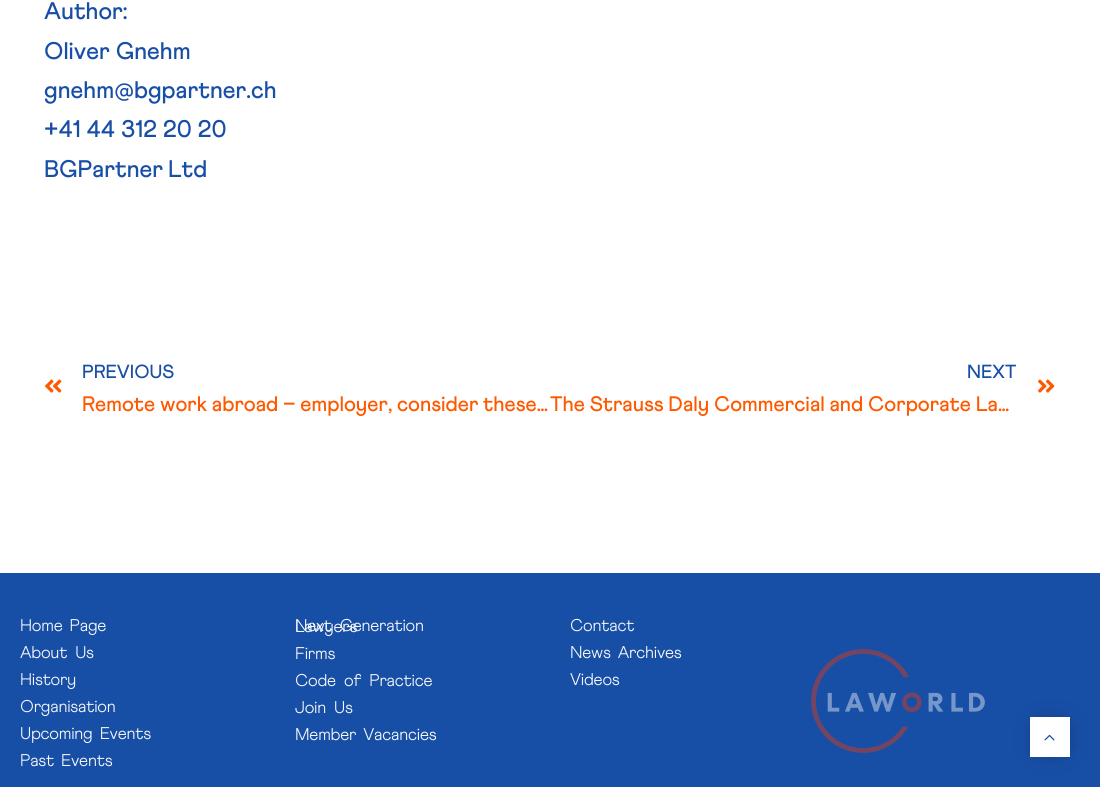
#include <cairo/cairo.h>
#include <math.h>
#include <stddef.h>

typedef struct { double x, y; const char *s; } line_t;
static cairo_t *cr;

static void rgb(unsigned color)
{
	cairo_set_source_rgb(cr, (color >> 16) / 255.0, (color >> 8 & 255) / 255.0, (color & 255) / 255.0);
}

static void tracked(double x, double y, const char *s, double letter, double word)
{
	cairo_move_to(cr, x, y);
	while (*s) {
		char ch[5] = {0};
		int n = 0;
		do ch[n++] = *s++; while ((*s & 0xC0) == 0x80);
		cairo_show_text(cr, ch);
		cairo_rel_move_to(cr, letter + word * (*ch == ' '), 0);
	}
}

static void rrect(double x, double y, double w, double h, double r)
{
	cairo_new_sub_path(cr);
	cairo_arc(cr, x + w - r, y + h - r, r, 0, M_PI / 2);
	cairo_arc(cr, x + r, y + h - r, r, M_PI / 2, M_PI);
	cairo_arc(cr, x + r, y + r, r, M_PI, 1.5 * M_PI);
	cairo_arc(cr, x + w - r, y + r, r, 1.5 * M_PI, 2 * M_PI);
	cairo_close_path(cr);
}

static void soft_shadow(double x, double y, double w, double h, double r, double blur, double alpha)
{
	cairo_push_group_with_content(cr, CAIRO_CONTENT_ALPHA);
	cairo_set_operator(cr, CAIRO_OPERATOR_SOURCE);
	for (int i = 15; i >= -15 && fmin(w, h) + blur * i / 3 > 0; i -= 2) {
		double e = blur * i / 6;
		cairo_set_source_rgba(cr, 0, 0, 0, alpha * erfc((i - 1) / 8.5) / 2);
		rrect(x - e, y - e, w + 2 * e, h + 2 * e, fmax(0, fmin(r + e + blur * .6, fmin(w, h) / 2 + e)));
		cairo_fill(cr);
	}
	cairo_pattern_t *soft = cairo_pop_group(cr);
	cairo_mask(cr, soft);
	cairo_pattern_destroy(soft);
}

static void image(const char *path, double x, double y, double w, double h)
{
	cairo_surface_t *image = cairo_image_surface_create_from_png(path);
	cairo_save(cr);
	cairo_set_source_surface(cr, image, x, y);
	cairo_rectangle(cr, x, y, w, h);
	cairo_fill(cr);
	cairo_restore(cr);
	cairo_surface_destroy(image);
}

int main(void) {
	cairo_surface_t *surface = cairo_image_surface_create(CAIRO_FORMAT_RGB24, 1100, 787);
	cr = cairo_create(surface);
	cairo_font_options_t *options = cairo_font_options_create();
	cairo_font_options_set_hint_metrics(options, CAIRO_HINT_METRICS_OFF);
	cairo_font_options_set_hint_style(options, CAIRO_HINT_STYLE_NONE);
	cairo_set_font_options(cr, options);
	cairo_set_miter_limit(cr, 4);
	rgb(0xffffff);
	cairo_paint(cr);
	image("img/1.png", 45, 379, 17, 14);
	image("img/2.png", 1038, 379, 17, 14);
	rgb(0x174ea6);
	cairo_rectangle(cr, 0, 573, 1100, 214);
	cairo_fill(cr);
	image("img/3.png", 811, 649, 174, 104);
	rgb(0x000000);
	soft_shadow(1040, 726, 22, 22, 0, 11, 0.4);
	rgb(0xffffff);
	cairo_rectangle(cr, 1030, 717, 40, 40);
	cairo_fill(cr);
	image("img/4.png", 1044, 734, 11, 7);
	cairo_select_font_face(cr, "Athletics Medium", CAIRO_FONT_SLANT_NORMAL, CAIRO_FONT_WEIGHT_NORMAL);
	cairo_set_font_size(cr, 24);
	rgb(0x174ea6);
	{
		static const line_t items[] = {
			{44, 19, "Author:"},
			{44, 59, "Oliver Gnehm"},
			{44, 98, "gnehm@bgpartner.ch"},
			{44, 137, "+41 44 312 20 20"},
		};
		for (size_t i = 0; i < sizeof items / sizeof *items; i++) {
			cairo_move_to(cr, items[i].x, items[i].y);
			cairo_show_text(cr, items[i].s);
		}
	}
	tracked(44, 177, "BGPartner Ltd", 0, -1);
	cairo_set_font_size(cr, 19);
	cairo_move_to(cr, 82, 378);
	cairo_show_text(cr, "PREVIOUS");
	cairo_set_font_size(cr, 21);
	rgb(0xff5900);
	tracked(82, 411, "Remote work abroad − employer, consider these…", 0, -0.5);
	cairo_set_font_size(cr, 19);
	rgb(0x174ea6);
	cairo_move_to(cr, 967, 378);
	cairo_show_text(cr, "NEXT");
	cairo_set_font_size(cr, 21);
	rgb(0xff5900);
	tracked(550, 411, "The Strauss Daly Commercial and Corporate La…", 0, -0.5);
	cairo_select_font_face(cr, "Athletics Light", CAIRO_FONT_SLANT_NORMAL, CAIRO_FONT_WEIGHT_NORMAL);
	cairo_set_font_size(cr, 17);
	rgb(0xf7f8f9);
	tracked(20, 631, "Home Page", -0.25, 3);
	tracked(20, 658, "About Us", -0.25, 4);
	tracked(20, 685, "History", -0.25, 0);
	tracked(20, 712, "Organisation", -0.25, 0);
	tracked(20, 739, "Upcoming Events", -0.25, 3);
	tracked(20, 766, "Past Events", -0.25, 3);
	tracked(295, 631, "Next Generation", -0.25, 4);
	tracked(295, 632, "Lawyers", -0.25, 0);
	tracked(295, 659, "Firms", -0.25, 0);
	tracked(295, 686, "Code of Practice", -0.25, 4);
	tracked(295, 713, "Join Us", -0.25, 4);
	tracked(295, 740, "Member Vacancies", -0.25, 3);
	tracked(570, 631, "Contact", -0.25, 0);
	tracked(570, 658, "News Archives", -0.25, 3);
	tracked(570, 685, "Videos", -0.25, 0);
	cairo_surface_write_to_png(surface, "page.png");
	cairo_font_options_destroy(options);
	cairo_destroy(cr);
	cairo_surface_destroy(surface);
	return 0;
}
